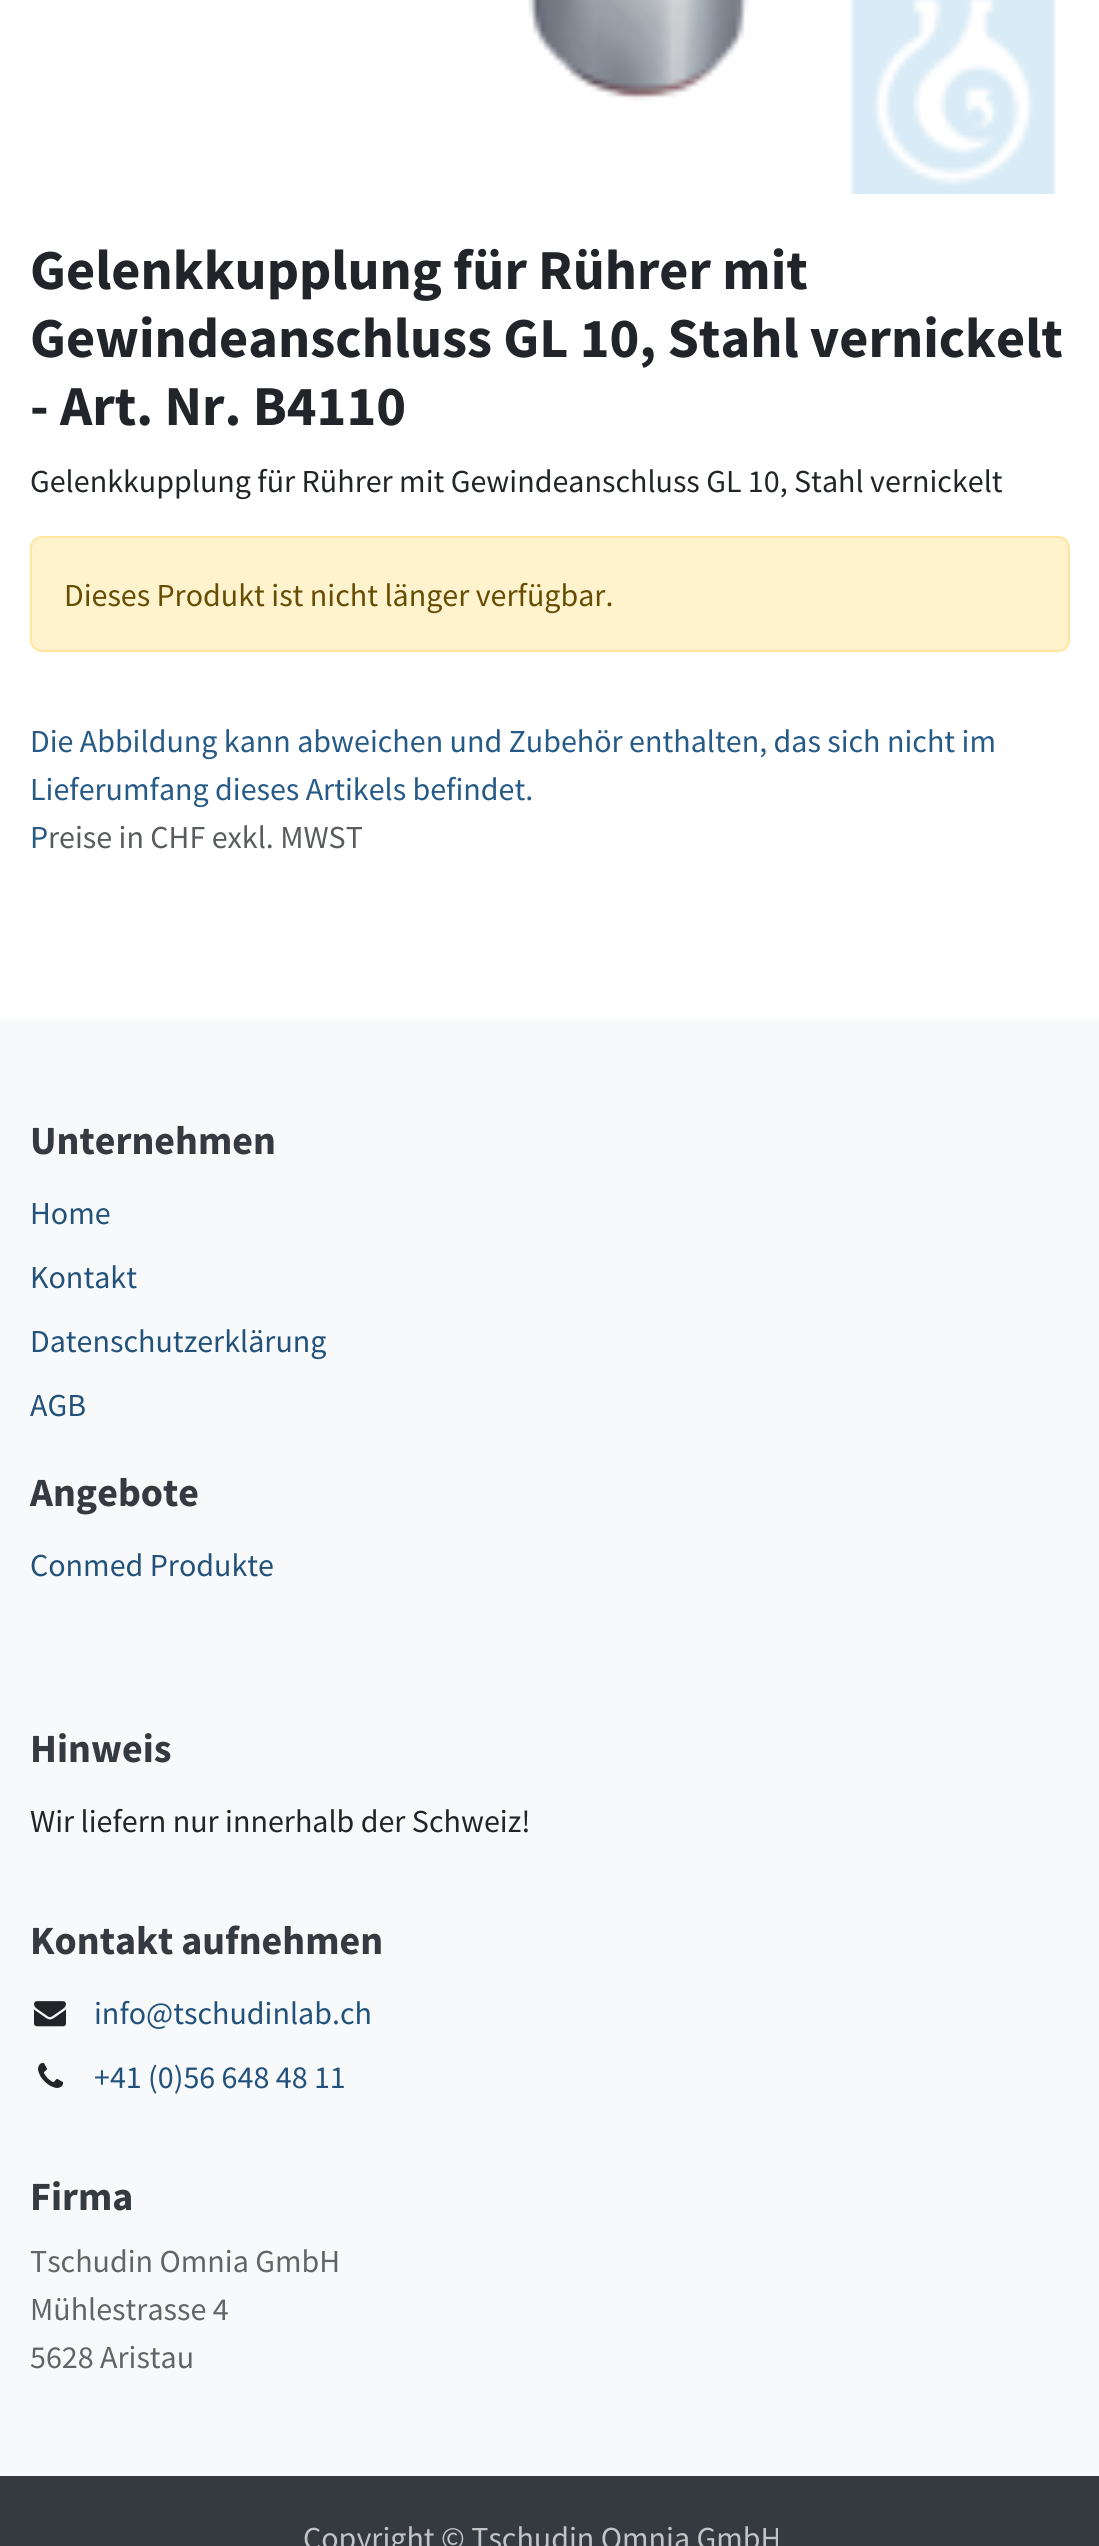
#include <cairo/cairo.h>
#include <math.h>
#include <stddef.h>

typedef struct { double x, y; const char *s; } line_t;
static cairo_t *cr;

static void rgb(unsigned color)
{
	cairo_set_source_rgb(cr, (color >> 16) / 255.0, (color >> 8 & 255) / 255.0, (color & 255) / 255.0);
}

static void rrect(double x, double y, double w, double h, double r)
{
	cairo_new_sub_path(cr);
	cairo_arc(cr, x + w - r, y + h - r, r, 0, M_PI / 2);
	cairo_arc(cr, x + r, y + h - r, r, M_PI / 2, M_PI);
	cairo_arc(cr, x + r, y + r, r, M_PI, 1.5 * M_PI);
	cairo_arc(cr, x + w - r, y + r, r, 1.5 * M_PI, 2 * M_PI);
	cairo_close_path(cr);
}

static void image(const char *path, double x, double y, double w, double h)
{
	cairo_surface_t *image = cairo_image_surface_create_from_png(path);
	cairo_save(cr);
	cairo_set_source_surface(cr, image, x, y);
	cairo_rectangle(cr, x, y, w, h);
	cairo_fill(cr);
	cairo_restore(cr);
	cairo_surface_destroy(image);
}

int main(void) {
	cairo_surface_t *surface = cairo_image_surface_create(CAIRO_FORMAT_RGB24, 1099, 2546);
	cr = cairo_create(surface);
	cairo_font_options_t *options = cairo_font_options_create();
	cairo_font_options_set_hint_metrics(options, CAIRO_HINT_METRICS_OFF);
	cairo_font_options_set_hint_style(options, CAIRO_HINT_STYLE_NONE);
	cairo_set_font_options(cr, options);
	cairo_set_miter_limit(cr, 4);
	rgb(0xffffff);
	cairo_paint(cr);
	image("img/1.png", 528, 0, 528, 194);
	rgb(0xfff3cd);
	rrect(31, 537, 1038, 114, 11);
	cairo_fill_preserve(cr);
	rgb(0xffe69c);
	cairo_stroke(cr);
	rgb(0xf8f9fa);
	cairo_rectangle(cr, 0, 1020, 1099, 1456);
	cairo_fill(cr);
	image("img/2.png", 34, 2001, 32, 26);
	image("img/3.png", 38, 2062, 26, 26);
	rgb(0x343a40);
	cairo_rectangle(cr, 0, 2476, 1099, 70);
	cairo_fill(cr);
	cairo_select_font_face(cr, "Source Sans Pro", CAIRO_FONT_SLANT_NORMAL, CAIRO_FONT_WEIGHT_BOLD);
	cairo_set_font_size(cr, 56.4);
	rgb(0x212529);
	{
		static const line_t items[] = {
			{30, 289, "Gelenkkupplung für Rührer mit"},
			{30, 357, "Gewindeanschluss GL 10, Stahl vernickelt"},
			{30, 425, "- Art. Nr. B4110"},
		};
		for (size_t i = 0; i < sizeof items / sizeof *items; i++) {
			cairo_move_to(cr, items[i].x, items[i].y);
			cairo_show_text(cr, items[i].s);
		}
	}
	cairo_select_font_face(cr, "Source Sans Pro", CAIRO_FONT_SLANT_NORMAL, CAIRO_FONT_WEIGHT_NORMAL);
	cairo_set_font_size(cr, 32);
	cairo_move_to(cr, 30, 492);
	cairo_show_text(cr, "Gelenkkupplung für Rührer mit Gewindeanschluss GL 10, Stahl vernickelt");
	rgb(0x664d03);
	cairo_move_to(cr, 64, 606);
	cairo_show_text(cr, "Dieses Produkt ist nicht länger verfügbar.");
	rgb(0x265a87);
	{
		static const line_t items[] = {
			{30, 752, "Die Abbildung kann abweichen und Zubehör enthalten, das sich nicht im"},
			{30, 800, "Lieferumfang dieses Artikels befindet."},
			{30, 848, "P"},
		};
		for (size_t i = 0; i < sizeof items / sizeof *items; i++) {
			cairo_move_to(cr, items[i].x, items[i].y);
			cairo_show_text(cr, items[i].s);
		}
	}
	rgb(0x595c5f);
	cairo_move_to(cr, 48, 848);
	cairo_show_text(cr, "reise in CHF exkl. MWST");
	cairo_select_font_face(cr, "Source Sans Pro", CAIRO_FONT_SLANT_NORMAL, CAIRO_FONT_WEIGHT_BOLD);
	cairo_set_font_size(cr, 40);
	rgb(0x343a40);
	cairo_move_to(cr, 30, 1154);
	cairo_show_text(cr, "Unternehmen");
	cairo_select_font_face(cr, "Source Sans Pro", CAIRO_FONT_SLANT_NORMAL, CAIRO_FONT_WEIGHT_NORMAL);
	cairo_set_font_size(cr, 32);
	rgb(0x22527b);
	{
		static const line_t items[] = {
			{30, 1224, "Home"},
			{30, 1288, "Kontakt"},
			{30, 1352, "Datenschutzerklärung"},
			{30, 1416, "AGB"},
		};
		for (size_t i = 0; i < sizeof items / sizeof *items; i++) {
			cairo_move_to(cr, items[i].x, items[i].y);
			cairo_show_text(cr, items[i].s);
		}
	}
	cairo_select_font_face(cr, "Source Sans Pro", CAIRO_FONT_SLANT_NORMAL, CAIRO_FONT_WEIGHT_BOLD);
	cairo_set_font_size(cr, 40);
	rgb(0x343a40);
	cairo_move_to(cr, 30, 1506);
	cairo_show_text(cr, "Angebote");
	cairo_select_font_face(cr, "Source Sans Pro", CAIRO_FONT_SLANT_NORMAL, CAIRO_FONT_WEIGHT_NORMAL);
	cairo_set_font_size(cr, 32);
	rgb(0x22527b);
	cairo_move_to(cr, 30, 1576);
	cairo_show_text(cr, "Conmed Produkte");
	cairo_select_font_face(cr, "Source Sans Pro", CAIRO_FONT_SLANT_NORMAL, CAIRO_FONT_WEIGHT_BOLD);
	cairo_set_font_size(cr, 40);
	rgb(0x343a40);
	cairo_move_to(cr, 30, 1762);
	cairo_show_text(cr, "Hinweis");
	cairo_select_font_face(cr, "Source Sans Pro", CAIRO_FONT_SLANT_NORMAL, CAIRO_FONT_WEIGHT_NORMAL);
	cairo_set_font_size(cr, 32);
	rgb(0x212529);
	cairo_move_to(cr, 30, 1832);
	cairo_show_text(cr, "Wir liefern nur innerhalb der Schweiz!");
	cairo_select_font_face(cr, "Source Sans Pro", CAIRO_FONT_SLANT_NORMAL, CAIRO_FONT_WEIGHT_BOLD);
	cairo_set_font_size(cr, 40);
	rgb(0x343a40);
	cairo_move_to(cr, 30, 1954);
	cairo_show_text(cr, "Kontakt aufnehmen");
	cairo_select_font_face(cr, "Source Sans Pro", CAIRO_FONT_SLANT_NORMAL, CAIRO_FONT_WEIGHT_NORMAL);
	cairo_set_font_size(cr, 32);
	rgb(0x22527b);
	cairo_move_to(cr, 94, 2024);
	cairo_show_text(cr, "info@tschudinlab.ch");
	cairo_move_to(cr, 94, 2088);
	cairo_show_text(cr, "+41 (0)56 648 48 11");
	cairo_select_font_face(cr, "Source Sans Pro", CAIRO_FONT_SLANT_NORMAL, CAIRO_FONT_WEIGHT_BOLD);
	cairo_set_font_size(cr, 40);
	rgb(0x343a40);
	cairo_move_to(cr, 30, 2210);
	cairo_show_text(cr, "Firma");
	cairo_select_font_face(cr, "Source Sans Pro", CAIRO_FONT_SLANT_NORMAL, CAIRO_FONT_WEIGHT_NORMAL);
	cairo_set_font_size(cr, 32);
	rgb(0x626568);
	{
		static const line_t items[] = {
			{30, 2272, "Tschudin Omnia GmbH"},
			{30, 2320, "Mühlestrasse 4"},
			{30, 2368, "5628 Aristau"},
		};
		for (size_t i = 0; i < sizeof items / sizeof *items; i++) {
			cairo_move_to(cr, items[i].x, items[i].y);
			cairo_show_text(cr, items[i].s);
		}
	}
	rgb(0xc2c4c6);
	cairo_move_to(cr, 303, 2549);
	cairo_show_text(cr, "Copyright © Tschudin Omnia GmbH");
	cairo_surface_write_to_png(surface, "page.png");
	cairo_font_options_destroy(options);
	cairo_destroy(cr);
	cairo_surface_destroy(surface);
	return 0;
}
